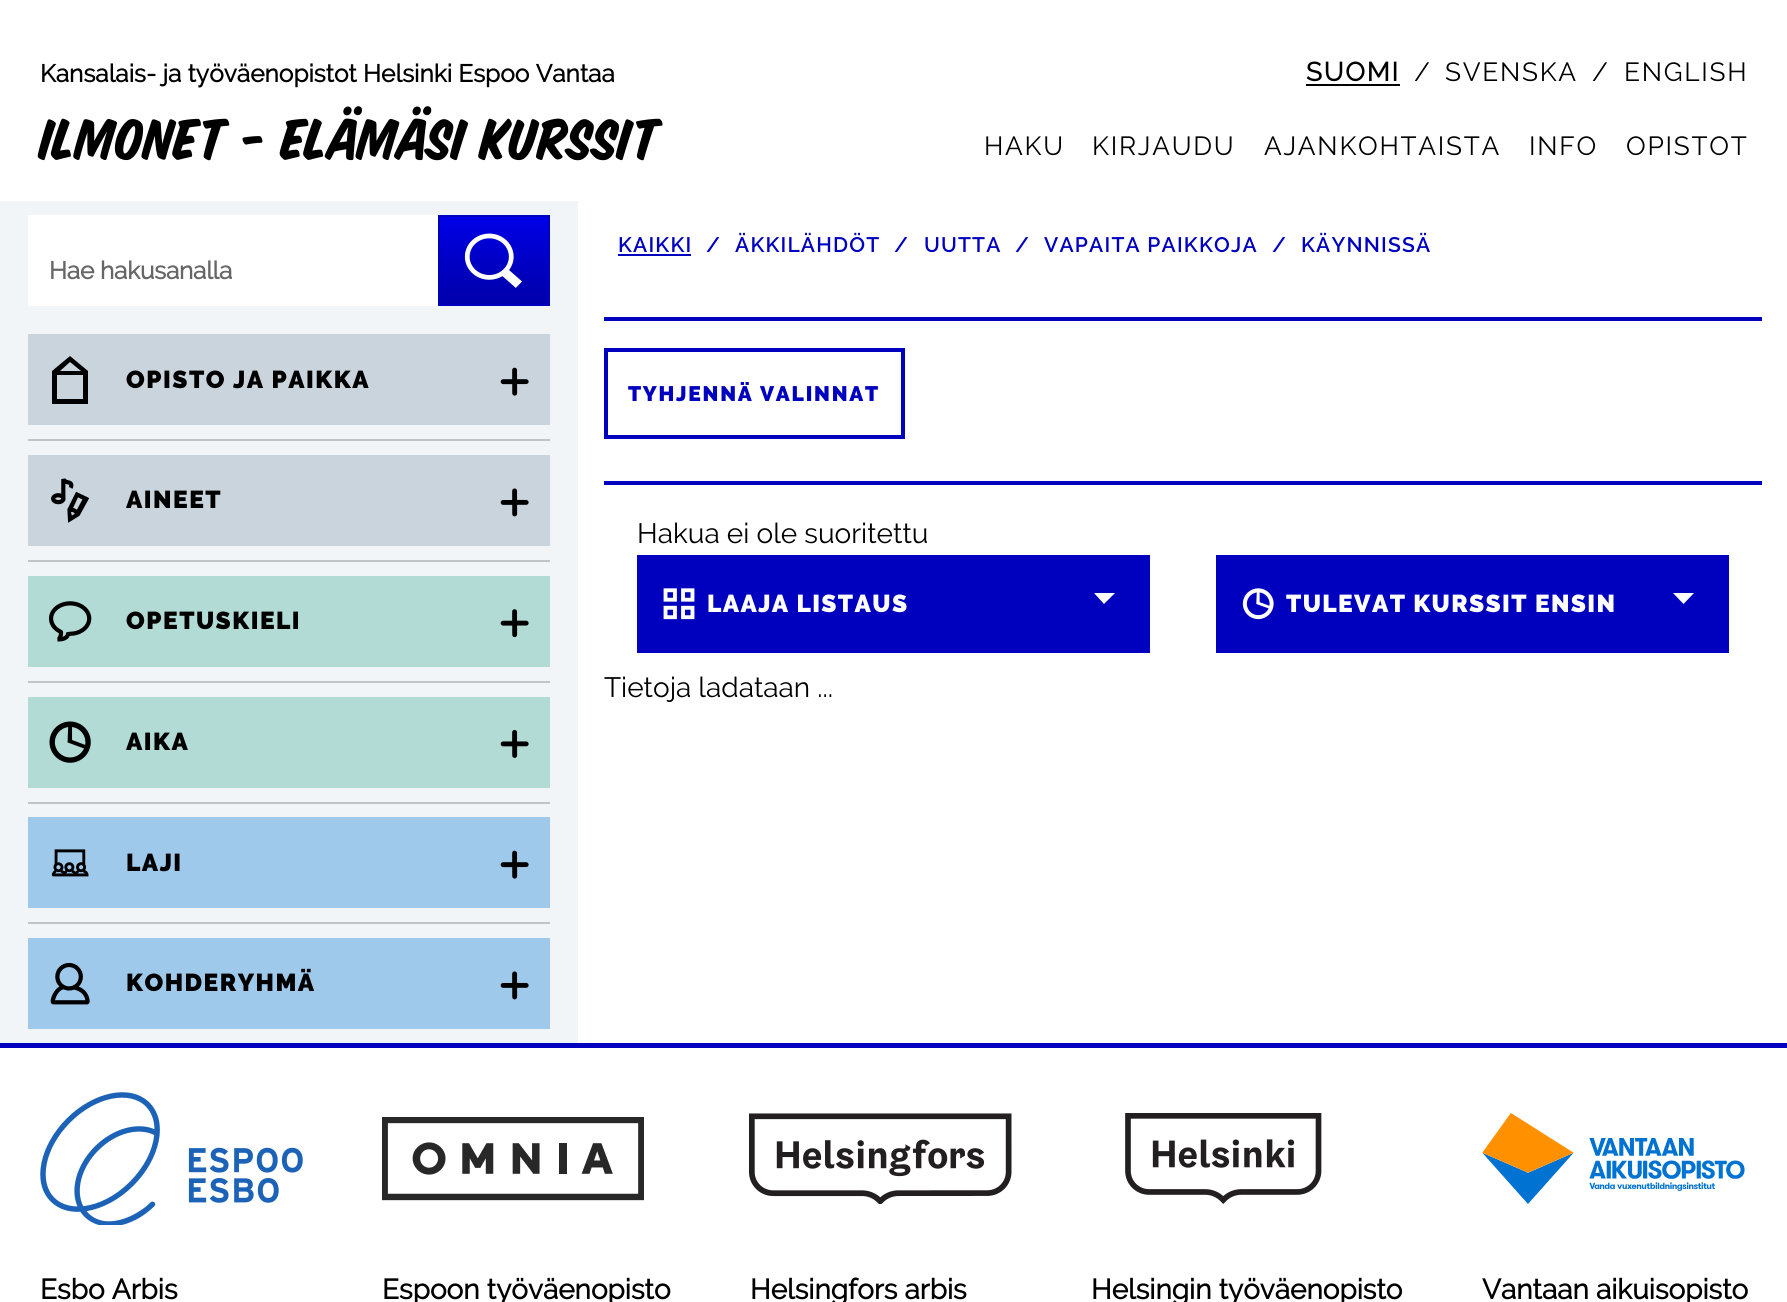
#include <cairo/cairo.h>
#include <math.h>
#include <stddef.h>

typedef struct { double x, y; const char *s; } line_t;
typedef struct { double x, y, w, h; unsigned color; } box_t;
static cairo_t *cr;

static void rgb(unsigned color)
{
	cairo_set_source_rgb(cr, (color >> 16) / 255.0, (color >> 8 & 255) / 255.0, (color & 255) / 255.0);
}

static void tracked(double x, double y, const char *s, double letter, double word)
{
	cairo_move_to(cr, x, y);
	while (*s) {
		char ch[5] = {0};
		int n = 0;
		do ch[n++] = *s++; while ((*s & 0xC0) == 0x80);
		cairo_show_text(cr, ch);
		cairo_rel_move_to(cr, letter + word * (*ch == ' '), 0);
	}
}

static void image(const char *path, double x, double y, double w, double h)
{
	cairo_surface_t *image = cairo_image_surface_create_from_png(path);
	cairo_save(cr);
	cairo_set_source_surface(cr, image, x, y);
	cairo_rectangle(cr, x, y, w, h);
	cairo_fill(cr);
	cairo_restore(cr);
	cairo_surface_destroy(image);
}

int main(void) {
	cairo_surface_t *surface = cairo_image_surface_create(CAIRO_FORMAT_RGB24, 1787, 1302);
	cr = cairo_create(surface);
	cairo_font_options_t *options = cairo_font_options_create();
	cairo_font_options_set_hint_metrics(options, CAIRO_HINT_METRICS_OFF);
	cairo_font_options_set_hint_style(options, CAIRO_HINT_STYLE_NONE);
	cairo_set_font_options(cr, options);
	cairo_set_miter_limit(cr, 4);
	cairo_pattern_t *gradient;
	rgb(0xffffff);
	cairo_paint(cr);
	{
		static const box_t items[] = {
			{1306, 84, 94, 2, 0x000000},
			{0, 201, 578, 842, 0xf1f5f8},
			{28, 215, 410, 91, 0xffffff},
		};
		for (size_t i = 0; i < sizeof items / sizeof *items; i++) {
			rgb(items[i].color);
			cairo_rectangle(cr, items[i].x, items[i].y, items[i].w, items[i].h);
			cairo_fill(cr);
		}
	}
	gradient = cairo_pattern_create_linear(494, 217, 494, 305);
	cairo_pattern_add_color_stop_rgba(gradient, 0, 0, 0, 0.91, 1);
	cairo_pattern_add_color_stop_rgba(gradient, 0.6, 0, 0, 0.749, 1);
	cairo_pattern_add_color_stop_rgba(gradient, 1, 0, 0, 0.671, 1);
	cairo_set_source(cr, gradient);
	cairo_pattern_destroy(gradient);
	cairo_rectangle(cr, 440, 217, 108, 87);
	cairo_fill(cr);
	cairo_rectangle(cr, 439, 216, 110, 89);
	rgb(0x0000bf);
	cairo_stroke(cr);
	image("img/1.png", 464, 233, 58, 55);
	rgb(0xc9d4dd);
	cairo_rectangle(cr, 28, 334, 522, 91);
	cairo_fill(cr);
	rgb(0x000000);
	cairo_new_path(cr);
	cairo_move_to(cr, 88, 371);
	cairo_line_to(cr, 70, 356);
	cairo_line_to(cr, 52, 371);
	cairo_line_to(cr, 52, 404);
	cairo_line_to(cr, 88, 404);
	cairo_close_path(cr);
	cairo_move_to(cr, 70, 362);
	cairo_line_to(cr, 81, 371);
	cairo_line_to(cr, 60, 371);
	cairo_close_path(cr);
	cairo_move_to(cr, 83, 399);
	cairo_line_to(cr, 57, 399);
	cairo_line_to(cr, 57, 375);
	cairo_line_to(cr, 83, 375);
	cairo_close_path(cr);
	cairo_fill(cr);
	image("img/2.png", 500, 367, 29, 29);
	rgb(0xc1c4c6);
	cairo_rectangle(cr, 28, 439, 522, 2);
	cairo_fill(cr);
	rgb(0xc9d4dd);
	cairo_rectangle(cr, 28, 455, 522, 91);
	cairo_fill(cr);
	image("img/3.png", 51, 478, 39, 45);
	image("img/4.png", 500, 488, 29, 29);
	rgb(0xc1c4c6);
	cairo_rectangle(cr, 28, 560, 522, 2);
	cairo_fill(cr);
	rgb(0xb2dbd6);
	cairo_rectangle(cr, 28, 576, 522, 91);
	cairo_fill(cr);
	image("img/5.png", 48, 601, 44, 41);
	image("img/6.png", 500, 609, 29, 29);
	rgb(0xc1c4c6);
	cairo_rectangle(cr, 28, 681, 522, 2);
	cairo_fill(cr);
	rgb(0xb2dbd6);
	cairo_rectangle(cr, 28, 697, 522, 91);
	cairo_fill(cr);
	image("img/7.png", 49, 721, 42, 42);
	image("img/8.png", 500, 729, 29, 29);
	rgb(0xc1c4c6);
	cairo_rectangle(cr, 28, 802, 522, 2);
	cairo_fill(cr);
	rgb(0x9fc9eb);
	cairo_rectangle(cr, 28, 817, 522, 91);
	cairo_fill(cr);
	image("img/9.png", 51, 849, 38, 28);
	image("img/10.png", 500, 850, 29, 29);
	rgb(0xc1c4c6);
	cairo_rectangle(cr, 28, 922, 522, 2);
	cairo_fill(cr);
	rgb(0x9fc9eb);
	cairo_rectangle(cr, 28, 938, 522, 91);
	cairo_fill(cr);
	image("img/11.png", 50, 962, 40, 43);
	image("img/12.png", 500, 971, 29, 29);
	rgb(0x0000bf);
	cairo_rectangle(cr, 618, 254, 73, 2);
	cairo_fill(cr);
	cairo_rectangle(cr, 604, 317, 1158, 4);
	cairo_fill(cr);
	cairo_rectangle(cr, 606, 350, 297, 87);
	cairo_set_line_width(cr, 4);
	cairo_stroke(cr);
	cairo_rectangle(cr, 604, 481, 1158, 4);
	cairo_fill(cr);
	cairo_rectangle(cr, 637, 555, 513, 98);
	cairo_fill(cr);
	rgb(0xffffff);
	cairo_new_path(cr);
	cairo_move_to(cr, 1094, 593);
	cairo_line_to(cr, 1115, 593);
	cairo_line_to(cr, 1104, 604);
	cairo_close_path(cr);
	cairo_fill(cr);
	image("img/13.png", 663, 588, 32, 32);
	rgb(0x0000bf);
	cairo_rectangle(cr, 1216, 555, 513, 98);
	cairo_fill(cr);
	rgb(0xffffff);
	cairo_new_path(cr);
	cairo_move_to(cr, 1673, 593);
	cairo_line_to(cr, 1694, 593);
	cairo_line_to(cr, 1683.5, 604);
	cairo_close_path(cr);
	cairo_fill(cr);
	image("img/14.png", 1242, 588, 32, 32);
	rgb(0x0000bf);
	cairo_rectangle(cr, 0, 1043, 1787, 5);
	cairo_fill(cr);
	image("img/15.png", 40, 1092, 263, 133);
	image("img/16.png", 382, 1117, 262, 84);
	image("img/17.png", 749, 1113, 263, 91);
	image("img/18.png", 1125, 1113, 197, 91);
	image("img/19.png", 1482, 1113, 263, 91);
	cairo_select_font_face(cr, "Raleway", CAIRO_FONT_SLANT_NORMAL, CAIRO_FONT_WEIGHT_BOLD);
	cairo_set_font_size(cr, 24.5);
	rgb(0x000000);
	cairo_move_to(cr, 40, 82);
	cairo_show_text(cr, "Kansalais- ja työväenopistot Helsinki Espoo Vantaa");
	cairo_set_font_size(cr, 26.25);
	tracked(1306, 81, "SUOMI", 1.75, 0);
	cairo_select_font_face(cr, "Raleway", CAIRO_FONT_SLANT_NORMAL, CAIRO_FONT_WEIGHT_NORMAL);
	{
		static const line_t items[] = {
			{1414, 81, "/"},
			{1445, 81, "SVENSKA"},
			{1592, 81, "/"},
			{1624, 81, "ENGLISH"},
		};
		for (size_t i = 0; i < sizeof items / sizeof *items; i++) {
			tracked(items[i].x, items[i].y, items[i].s, 1.75, 0);
		}
	}
	cairo_select_font_face(cr, "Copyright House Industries", CAIRO_FONT_SLANT_NORMAL, CAIRO_FONT_WEIGHT_NORMAL);
	cairo_set_font_size(cr, 63);
	cairo_move_to(cr, 40, 159);
	cairo_show_text(cr, "ILMONET - ELÄMÄSI KURSSIT");
	cairo_select_font_face(cr, "Raleway", CAIRO_FONT_SLANT_NORMAL, CAIRO_FONT_WEIGHT_NORMAL);
	cairo_set_font_size(cr, 26.25);
	{
		static const line_t items[] = {
			{984, 155, "HAKU"},
			{1092, 155, "KIRJAUDU"},
			{1264, 155, "AJANKOHTAISTA"},
			{1529, 155, "INFO"},
			{1626, 155, "OPISTOT"},
		};
		for (size_t i = 0; i < sizeof items / sizeof *items; i++) {
			tracked(items[i].x, items[i].y, items[i].s, 1.75, 0);
		}
	}
	cairo_select_font_face(cr, "Raleway", CAIRO_FONT_SLANT_NORMAL, CAIRO_FONT_WEIGHT_BOLD);
	cairo_set_font_size(cr, 24.5);
	rgb(0x666666);
	tracked(49, 279, "Hae hakusanalla", -0.25, 0);
	cairo_select_font_face(cr, "Raleway Black", CAIRO_FONT_SLANT_NORMAL, CAIRO_FONT_WEIGHT_NORMAL);
	rgb(0x000000);
	{
		static const line_t items[] = {
			{126, 388, "OPISTO JA PAIKKA"},
			{126, 508, "AINEET"},
			{126, 629, "OPETUSKIELI"},
			{126, 750, "AIKA"},
			{126, 871, "LAJI"},
			{126, 991, "KOHDERYHMÄ"},
		};
		for (size_t i = 0; i < sizeof items / sizeof *items; i++) {
			tracked(items[i].x, items[i].y, items[i].s, 1.5, 0);
		}
	}
	cairo_select_font_face(cr, "Raleway SemiBold", CAIRO_FONT_SLANT_NORMAL, CAIRO_FONT_WEIGHT_NORMAL);
	cairo_set_font_size(cr, 21);
	rgb(0x0000bf);
	{
		static const line_t items[] = {
			{618, 252, "KAIKKI"},
			{706, 252, "/"},
			{735, 252, "ÄKKILÄHDÖT"},
			{894, 252, "/"},
			{924, 252, "UUTTA"},
			{1015, 252, "/"},
			{1044, 252, "VAPAITA PAIKKOJA"},
			{1272, 252, "/"},
			{1301, 252, "KÄYNNISSÄ"},
		};
		for (size_t i = 0; i < sizeof items / sizeof *items; i++) {
			tracked(items[i].x, items[i].y, items[i].s, 1.2, 0);
		}
	}
	cairo_select_font_face(cr, "Raleway Black", CAIRO_FONT_SLANT_NORMAL, CAIRO_FONT_WEIGHT_NORMAL);
	tracked(628, 401, "TYHJENNÄ VALINNAT", 1.75, 0);
	cairo_select_font_face(cr, "Raleway", CAIRO_FONT_SLANT_NORMAL, CAIRO_FONT_WEIGHT_NORMAL);
	cairo_set_font_size(cr, 28);
	rgb(0x000000);
	cairo_move_to(cr, 637, 543);
	cairo_show_text(cr, "Hakua ei ole suoritettu");
	cairo_select_font_face(cr, "Raleway Black", CAIRO_FONT_SLANT_NORMAL, CAIRO_FONT_WEIGHT_NORMAL);
	cairo_set_font_size(cr, 24.5);
	rgb(0xffffff);
	tracked(707, 612, "LAAJA LISTAUS", 1.4, 0);
	tracked(1286, 612, "TULEVAT KURSSIT ENSIN", 1.4, 0);
	cairo_select_font_face(cr, "Raleway", CAIRO_FONT_SLANT_NORMAL, CAIRO_FONT_WEIGHT_NORMAL);
	cairo_set_font_size(cr, 28);
	rgb(0x000000);
	cairo_move_to(cr, 604, 697);
	cairo_show_text(cr, "Tietoja ladataan ...");
	cairo_select_font_face(cr, "Raleway", CAIRO_FONT_SLANT_NORMAL, CAIRO_FONT_WEIGHT_BOLD);
	{
		static const line_t items[] = {
			{40, 1299, "Esbo Arbis"},
			{382, 1299, "Espoon työväenopisto"},
			{750, 1299, "Helsingfors arbis"},
			{1091, 1299, "Helsingin työväenopisto"},
			{1482, 1299, "Vantaan aikuisopisto"},
		};
		for (size_t i = 0; i < sizeof items / sizeof *items; i++) {
			cairo_move_to(cr, items[i].x, items[i].y);
			cairo_show_text(cr, items[i].s);
		}
	}
	cairo_surface_write_to_png(surface, "page.png");
	cairo_font_options_destroy(options);
	cairo_destroy(cr);
	cairo_surface_destroy(surface);
	return 0;
}
